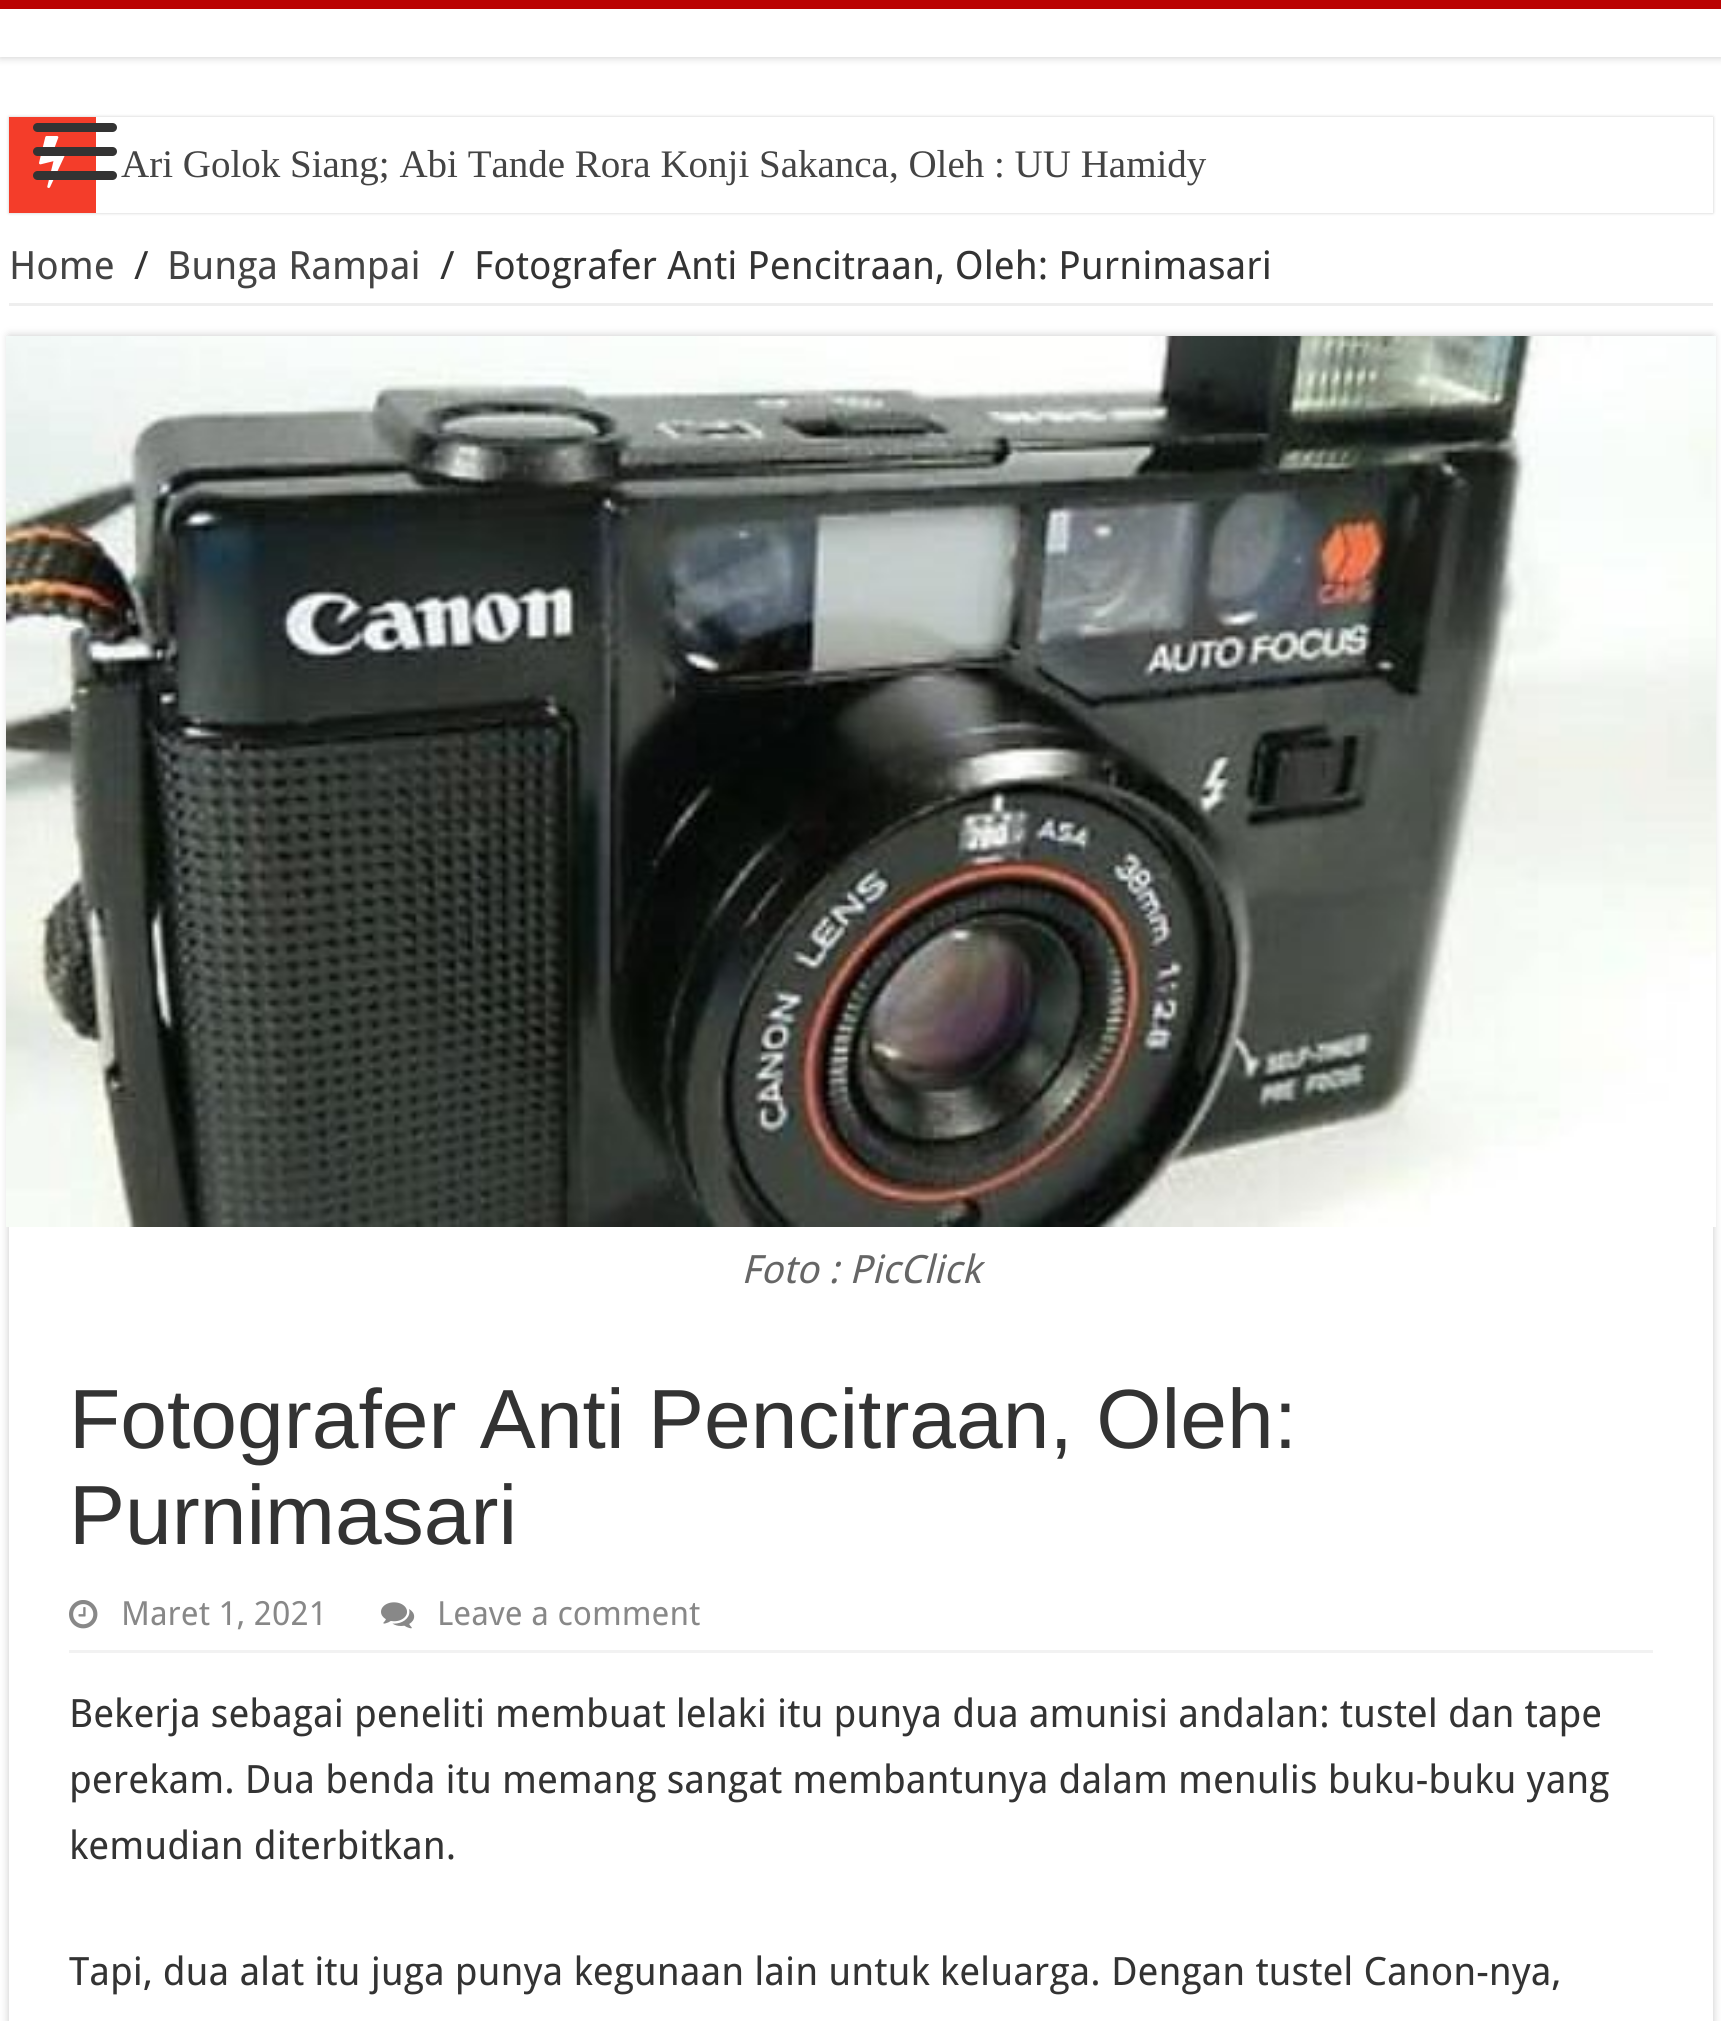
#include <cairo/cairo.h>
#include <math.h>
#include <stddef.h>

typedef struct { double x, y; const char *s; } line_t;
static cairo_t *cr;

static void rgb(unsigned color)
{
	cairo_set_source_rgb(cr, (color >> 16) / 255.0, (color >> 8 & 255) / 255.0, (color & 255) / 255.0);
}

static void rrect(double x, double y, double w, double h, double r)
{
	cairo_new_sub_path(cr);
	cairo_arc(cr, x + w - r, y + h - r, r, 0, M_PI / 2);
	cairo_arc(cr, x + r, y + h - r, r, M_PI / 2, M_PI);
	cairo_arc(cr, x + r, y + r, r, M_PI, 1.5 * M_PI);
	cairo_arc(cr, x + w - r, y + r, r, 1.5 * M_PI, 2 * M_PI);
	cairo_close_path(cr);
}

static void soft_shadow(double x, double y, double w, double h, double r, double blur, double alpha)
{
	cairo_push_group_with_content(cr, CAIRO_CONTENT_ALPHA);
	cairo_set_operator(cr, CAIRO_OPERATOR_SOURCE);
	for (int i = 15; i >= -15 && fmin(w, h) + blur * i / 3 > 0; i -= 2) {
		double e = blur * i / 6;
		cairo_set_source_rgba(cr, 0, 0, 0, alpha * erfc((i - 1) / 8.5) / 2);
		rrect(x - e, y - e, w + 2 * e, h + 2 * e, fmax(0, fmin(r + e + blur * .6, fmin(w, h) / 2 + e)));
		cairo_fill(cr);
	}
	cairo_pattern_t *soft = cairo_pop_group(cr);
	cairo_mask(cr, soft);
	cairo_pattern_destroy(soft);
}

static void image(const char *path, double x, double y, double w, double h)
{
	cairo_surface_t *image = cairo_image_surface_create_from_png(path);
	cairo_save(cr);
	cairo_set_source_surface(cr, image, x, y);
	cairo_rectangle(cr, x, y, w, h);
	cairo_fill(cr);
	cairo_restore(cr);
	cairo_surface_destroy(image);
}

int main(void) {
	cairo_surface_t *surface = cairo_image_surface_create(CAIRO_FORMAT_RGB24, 1721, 2021);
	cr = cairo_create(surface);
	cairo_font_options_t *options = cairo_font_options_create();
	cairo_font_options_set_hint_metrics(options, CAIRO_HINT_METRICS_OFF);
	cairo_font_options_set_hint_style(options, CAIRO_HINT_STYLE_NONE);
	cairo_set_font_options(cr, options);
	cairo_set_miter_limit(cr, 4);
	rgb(0xffffff);
	cairo_paint(cr);
	cairo_save(cr);
	cairo_rectangle(cr, 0, 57, 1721, 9);
	cairo_clip(cr);
	rgb(0xcacaca);
	soft_shadow(0, 0, 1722, 57, 0, 4.5, 1);
	cairo_restore(cr);
	rgb(0xba0202);
	cairo_rectangle(cr, 0, 0, 1721, 9);
	cairo_fill(cr);
	cairo_save(cr);
	cairo_set_fill_rule(cr, CAIRO_FILL_RULE_EVEN_ODD);
	cairo_new_path(cr);
	cairo_move_to(cr, 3, 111);
	cairo_line_to(cr, 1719, 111);
	cairo_line_to(cr, 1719, 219);
	cairo_line_to(cr, 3, 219);
	cairo_close_path(cr);
	cairo_move_to(cr, 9, 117);
	cairo_line_to(cr, 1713, 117);
	cairo_line_to(cr, 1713, 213);
	cairo_line_to(cr, 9, 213);
	cairo_close_path(cr);
	cairo_clip(cr);
	rgb(0xcacaca);
	soft_shadow(9, 117, 1704, 96, 0, 1.5, 1);
	cairo_restore(cr);
	rgb(0xf43d2a);
	cairo_rectangle(cr, 9, 117, 87, 96);
	cairo_fill(cr);
	rgb(0x333333);
	rrect(33, 123, 84, 9, 4.5);
	cairo_fill(cr);
	image("img/1.png", 39, 136, 26, 52);
	rrect(33, 147, 84, 9, 4.5);
	cairo_fill(cr);
	rrect(33, 171, 84, 9, 4.5);
	cairo_fill(cr);
	rgb(0xeeeeee);
	cairo_rectangle(cr, 9, 303, 1704, 3);
	cairo_fill(cr);
	cairo_save(cr);
	cairo_set_fill_rule(cr, CAIRO_FILL_RULE_EVEN_ODD);
	cairo_new_path(cr);
	cairo_move_to(cr, 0, 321);
	cairo_line_to(cr, 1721, 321);
	cairo_line_to(cr, 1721, 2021);
	cairo_line_to(cr, 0, 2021);
	cairo_close_path(cr);
	cairo_move_to(cr, 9, 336);
	cairo_line_to(cr, 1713, 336);
	cairo_line_to(cr, 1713, 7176);
	cairo_line_to(cr, 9, 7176);
	cairo_close_path(cr);
	cairo_clip(cr);
	rgb(0xcacaca);
	soft_shadow(9, 336, 1704, 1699, 0, 4.5, 1);
	cairo_restore(cr);
	image("img/2.png", 6, 336, 1710, 891);
	rgb(0xf2f2f2);
	cairo_rectangle(cr, 69, 1650, 1584, 3);
	cairo_fill(cr);
	image("img/3.png", 69, 1600, 29, 29);
	image("img/4.png", 381, 1602, 34, 27);
	cairo_select_font_face(cr, "Liberation Serif", CAIRO_FONT_SLANT_NORMAL, CAIRO_FONT_WEIGHT_NORMAL);
	cairo_set_font_size(cr, 39);
	rgb(0x444444);
	cairo_move_to(cr, 121, 177);
	cairo_show_text(cr, "Ari Golok Siang; Abi Tande Rora Konji Sakanca, Oleh : UU Hamidy");
	cairo_select_font_face(cr, "Droid Sans", CAIRO_FONT_SLANT_NORMAL, CAIRO_FONT_WEIGHT_NORMAL);
	cairo_move_to(cr, 9, 279);
	cairo_show_text(cr, "Home");
	rgb(0x333333);
	cairo_move_to(cr, 134, 279);
	cairo_show_text(cr, "/");
	rgb(0x444444);
	cairo_move_to(cr, 167, 279);
	cairo_show_text(cr, "Bunga Rampai");
	rgb(0x333333);
	cairo_move_to(cr, 440, 279);
	cairo_show_text(cr, "/");
	cairo_move_to(cr, 474, 279);
	cairo_show_text(cr, "Fotografer Anti Pencitraan, Oleh: Purnimasari");
	cairo_select_font_face(cr, "Droid Sans", CAIRO_FONT_SLANT_ITALIC, CAIRO_FONT_WEIGHT_NORMAL);
	rgb(0x666666);
	cairo_move_to(cr, 741, 1283);
	cairo_show_text(cr, "Foto : PicClick");
	cairo_select_font_face(cr, "Liberation Sans", CAIRO_FONT_SLANT_NORMAL, CAIRO_FONT_WEIGHT_NORMAL);
	cairo_set_font_size(cr, 84);
	rgb(0x333333);
	cairo_move_to(cr, 69, 1448);
	cairo_show_text(cr, "Fotografer Anti Pencitraan, Oleh:");
	cairo_move_to(cr, 69, 1544);
	cairo_show_text(cr, "Purnimasari");
	cairo_select_font_face(cr, "Droid Sans", CAIRO_FONT_SLANT_NORMAL, CAIRO_FONT_WEIGHT_NORMAL);
	cairo_set_font_size(cr, 33.25);
	rgb(0x888888);
	cairo_move_to(cr, 121, 1625);
	cairo_show_text(cr, "Maret 1, 2021");
	cairo_move_to(cr, 437, 1625);
	cairo_show_text(cr, "Leave a comment");
	cairo_set_font_size(cr, 39);
	rgb(0x333333);
	{
		static const line_t items[] = {
			{69, 1727, "Bekerja sebagai peneliti membuat lelaki itu punya dua amunisi andalan: tustel dan tape"},
			{69, 1793, "perekam. Dua benda itu memang sangat membantunya dalam menulis buku-buku yang"},
			{69, 1859, "kemudian diterbitkan."},
			{69, 1985, "Tapi, dua alat itu juga punya kegunaan lain untuk keluarga. Dengan tustel Canon-nya,"},
		};
		for (size_t i = 0; i < sizeof items / sizeof *items; i++) {
			cairo_move_to(cr, items[i].x, items[i].y);
			cairo_show_text(cr, items[i].s);
		}
	}
	cairo_surface_write_to_png(surface, "page.png");
	cairo_font_options_destroy(options);
	cairo_destroy(cr);
	cairo_surface_destroy(surface);
	return 0;
}
